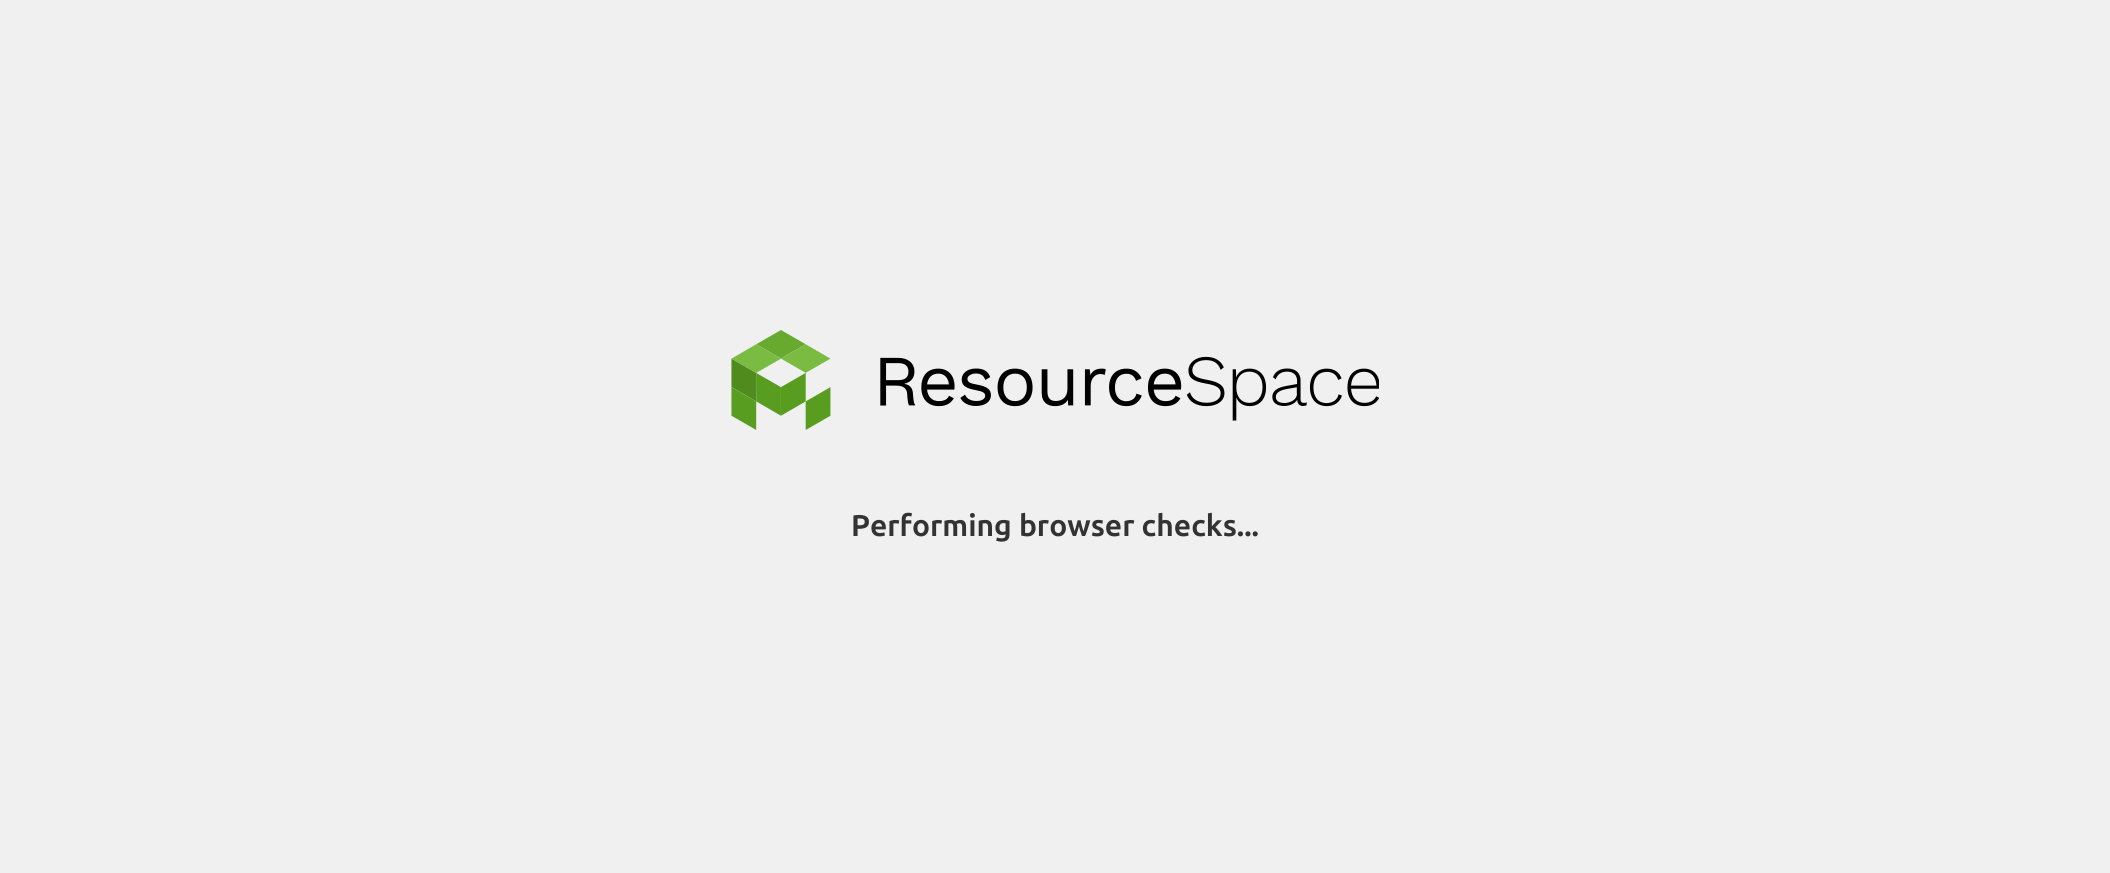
#include <cairo/cairo.h>
#include <math.h>
#include <stddef.h>

static cairo_t *cr;

static void rgb(unsigned color)
{
	cairo_set_source_rgb(cr, (color >> 16) / 255.0, (color >> 8 & 255) / 255.0, (color & 255) / 255.0);
}

static void image(const char *path, double x, double y, double w, double h)
{
	cairo_surface_t *image = cairo_image_surface_create_from_png(path);
	cairo_save(cr);
	cairo_set_source_surface(cr, image, x, y);
	cairo_rectangle(cr, x, y, w, h);
	cairo_fill(cr);
	cairo_restore(cr);
	cairo_surface_destroy(image);
}

int main(void) {
	cairo_surface_t *surface = cairo_image_surface_create(CAIRO_FORMAT_RGB24, 2110, 873);
	cr = cairo_create(surface);
	cairo_font_options_t *options = cairo_font_options_create();
	cairo_font_options_set_hint_metrics(options, CAIRO_HINT_METRICS_OFF);
	cairo_font_options_set_hint_style(options, CAIRO_HINT_STYLE_NONE);
	cairo_set_font_options(cr, options);
	cairo_set_miter_limit(cr, 4);
	rgb(0xf0f0f0);
	cairo_paint(cr);
	image("img/1.png", 731, 330, 648, 100);
	cairo_select_font_face(cr, "Ubuntu", CAIRO_FONT_SLANT_NORMAL, CAIRO_FONT_WEIGHT_BOLD);
	cairo_set_font_size(cr, 30);
	rgb(0x333333);
	cairo_move_to(cr, 851, 536);
	cairo_show_text(cr, "Performing browser checks...");
	cairo_surface_write_to_png(surface, "page.png");
	cairo_font_options_destroy(options);
	cairo_destroy(cr);
	cairo_surface_destroy(surface);
	return 0;
}
